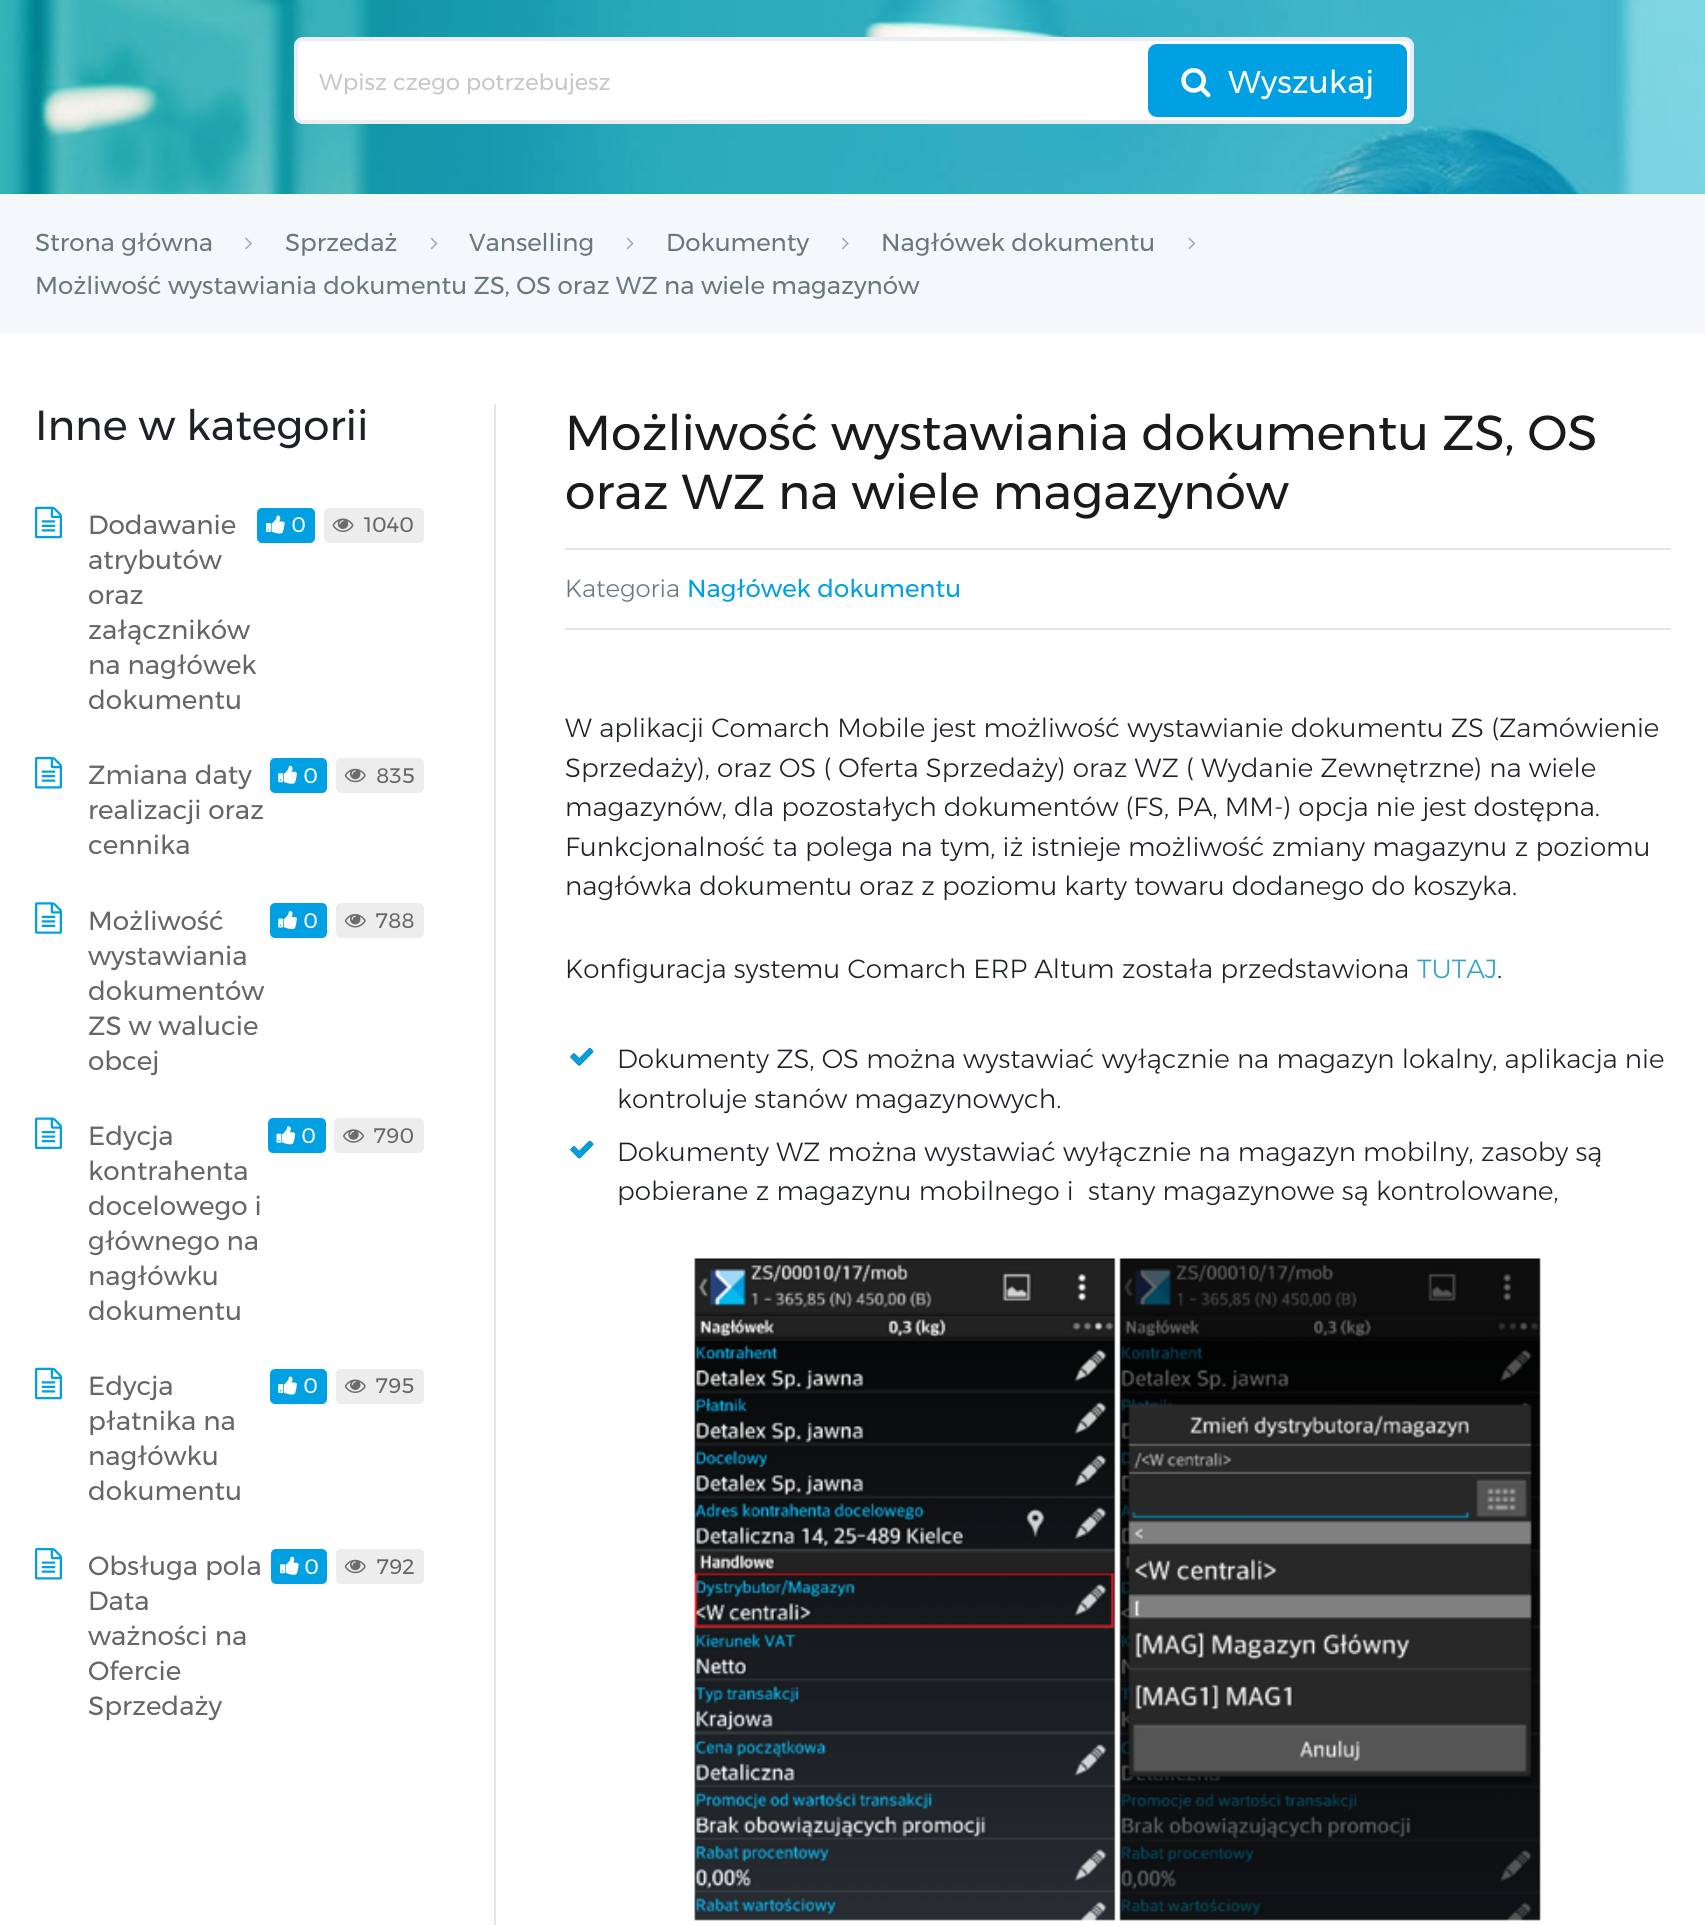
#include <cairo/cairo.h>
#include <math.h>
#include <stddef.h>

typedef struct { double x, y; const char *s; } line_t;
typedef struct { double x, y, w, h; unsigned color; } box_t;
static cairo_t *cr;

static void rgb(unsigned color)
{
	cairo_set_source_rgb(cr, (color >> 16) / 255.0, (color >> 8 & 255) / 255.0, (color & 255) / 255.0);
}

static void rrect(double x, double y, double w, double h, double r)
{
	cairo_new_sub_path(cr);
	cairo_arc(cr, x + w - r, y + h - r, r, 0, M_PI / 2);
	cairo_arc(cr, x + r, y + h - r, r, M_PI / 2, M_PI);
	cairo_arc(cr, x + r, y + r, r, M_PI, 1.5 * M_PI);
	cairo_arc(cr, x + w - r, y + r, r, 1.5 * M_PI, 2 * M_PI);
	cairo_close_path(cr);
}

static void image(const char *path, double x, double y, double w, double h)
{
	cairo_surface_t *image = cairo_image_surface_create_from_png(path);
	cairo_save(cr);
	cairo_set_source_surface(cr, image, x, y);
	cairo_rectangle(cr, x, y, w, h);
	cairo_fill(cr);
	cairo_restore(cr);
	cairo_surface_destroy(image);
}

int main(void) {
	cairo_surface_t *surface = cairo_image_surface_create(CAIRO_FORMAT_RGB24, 1705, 1925);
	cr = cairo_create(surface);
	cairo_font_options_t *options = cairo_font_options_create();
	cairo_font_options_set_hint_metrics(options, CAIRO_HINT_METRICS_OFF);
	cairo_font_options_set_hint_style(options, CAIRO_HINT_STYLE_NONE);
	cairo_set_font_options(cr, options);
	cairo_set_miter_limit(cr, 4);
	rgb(0xffffff);
	cairo_paint(cr);
	image("img/1.png", 0, 0, 1705, 194);
	rgb(0xffffff);
	rrect(296, 39, 1116, 83, 7);
	cairo_fill_preserve(cr);
	rgb(0xecedf2);
	cairo_set_line_width(cr, 4);
	cairo_stroke(cr);
	rgb(0x00a0e3);
	rrect(1148, 44, 259, 73, 9);
	cairo_fill(cr);
	image("img/2.png", 1181, 68, 30, 30);
	rgb(0xf5f8fa);
	cairo_rectangle(cr, 0, 194, 1705, 140);
	cairo_fill(cr);
	image("img/3.png", 245, 237, 7, 13);
	image("img/4.png", 430, 237, 8, 13);
	image("img/4.png", 626, 237, 8, 13);
	image("img/5.png", 842, 237, 7, 13);
	image("img/6.png", 1188, 237, 8, 13);
	image("img/7.png", 35, 506, 27, 33);
	rgb(0x00a0e3);
	rrect(257, 508, 58, 35, 5);
	cairo_fill(cr);
	image("img/8.png", 266, 515, 19, 19);
	rgb(0xededed);
	rrect(324, 508, 100, 35, 5);
	cairo_fill(cr);
	image("img/9.png", 332, 518, 22, 14);
	image("img/10.png", 35, 757, 27, 32);
	rgb(0x00a0e3);
	rrect(270, 758, 57, 35, 5);
	cairo_fill(cr);
	image("img/11.png", 278, 765, 19, 19);
	rgb(0xededed);
	rrect(336, 758, 88, 35, 5);
	cairo_fill(cr);
	image("img/12.png", 344, 768, 22, 15);
	image("img/13.png", 35, 902, 27, 32);
	rgb(0x00a0e3);
	rrect(270, 903, 57, 35, 5);
	cairo_fill(cr);
	image("img/14.png", 278, 911, 19, 18);
	rgb(0xededed);
	rrect(336, 903, 88, 35, 5);
	cairo_fill(cr);
	image("img/15.png", 344, 914, 22, 14);
	image("img/16.png", 35, 1117, 27, 32);
	rgb(0x00a0e3);
	rrect(268, 1118, 58, 35, 5);
	cairo_fill(cr);
	image("img/17.png", 276, 1126, 20, 19);
	rgb(0xededed);
	rrect(334, 1118, 90, 35, 5);
	cairo_fill(cr);
	image("img/18.png", 343, 1129, 21, 14);
	image("img/7.png", 35, 1367, 27, 33);
	rgb(0x00a0e3);
	rrect(270, 1369, 57, 35, 5);
	cairo_fill(cr);
	image("img/19.png", 278, 1376, 19, 19);
	rgb(0xededed);
	rrect(336, 1369, 88, 35, 5);
	cairo_fill(cr);
	image("img/20.png", 344, 1379, 22, 14);
	image("img/10.png", 35, 1548, 27, 32);
	rgb(0x00a0e3);
	rrect(271, 1549, 56, 35, 5);
	cairo_fill(cr);
	image("img/21.png", 280, 1556, 19, 19);
	rgb(0xededed);
	rrect(336, 1549, 88, 35, 5);
	cairo_fill(cr);
	image("img/12.png", 344, 1559, 22, 15);
	{
		static const box_t items[] = {
			{494, 404, 2, 1521, 0xe5e6e9},
			{565, 548, 1106, 2, 0xe5e6e9},
			{565, 628, 1106, 2, 0xe5e6e9},
		};
		for (size_t i = 0; i < sizeof items / sizeof *items; i++) {
			rgb(items[i].color);
			cairo_rectangle(cr, items[i].x, items[i].y, items[i].w, items[i].h);
			cairo_fill(cr);
		}
	}
	image("img/22.png", 570, 1048, 24, 18);
	image("img/23.png", 570, 1048, 24, 18);
	image("img/24.png", 570, 1140, 24, 19);
	image("img/25.png", 570, 1140, 24, 19);
	image("img/26.png", 694, 1258, 847, 663);
	cairo_select_font_face(cr, "Montserrat", CAIRO_FONT_SLANT_NORMAL, CAIRO_FONT_WEIGHT_NORMAL);
	cairo_set_font_size(cr, 22.75);
	rgb(0xc7c7c7);
	cairo_move_to(cr, 319, 90);
	cairo_show_text(cr, "Wpisz czego potrzebujesz");
	cairo_set_font_size(cr, 31.5);
	rgb(0xffffff);
	cairo_move_to(cr, 1228, 93);
	cairo_show_text(cr, "Wyszukaj");
	cairo_set_font_size(cr, 24.5);
	rgb(0x697780);
	{
		static const line_t items[] = {
			{35, 251, "Strona główna"},
			{285, 251, "Sprzedaż"},
			{469, 251, "Vanselling"},
			{666, 251, "Dokumenty"},
			{881, 251, "Nagłówek dokumentu"},
			{35, 294, "Możliwość wystawiania dokumentu ZS, OS oraz WZ na wiele magazynów"},
		};
		for (size_t i = 0; i < sizeof items / sizeof *items; i++) {
			cairo_move_to(cr, items[i].x, items[i].y);
			cairo_show_text(cr, items[i].s);
		}
	}
	cairo_set_font_size(cr, 42);
	rgb(0x1e2129);
	cairo_move_to(cr, 35, 440);
	cairo_show_text(cr, "Inne w kategorii");
	cairo_set_font_size(cr, 26.25);
	rgb(0x666666);
	cairo_move_to(cr, 88, 534);
	cairo_show_text(cr, "Dodawanie");
	cairo_set_font_size(cr, 21);
	rgb(0xffffff);
	cairo_move_to(cr, 291, 532);
	cairo_show_text(cr, "0");
	rgb(0x666666);
	cairo_move_to(cr, 364, 532);
	cairo_show_text(cr, "1040");
	cairo_set_font_size(cr, 26.25);
	{
		static const line_t items[] = {
			{88, 569, "atrybutów"},
			{88, 604, "oraz"},
			{88, 639, "załączników"},
			{88, 674, "na nagłówek"},
			{88, 709, "dokumentu"},
			{88, 784, "Zmiana daty"},
		};
		for (size_t i = 0; i < sizeof items / sizeof *items; i++) {
			cairo_move_to(cr, items[i].x, items[i].y);
			cairo_show_text(cr, items[i].s);
		}
	}
	cairo_set_font_size(cr, 21);
	rgb(0xffffff);
	cairo_move_to(cr, 303, 783);
	cairo_show_text(cr, "0");
	rgb(0x666666);
	cairo_move_to(cr, 376, 783);
	cairo_show_text(cr, "835");
	cairo_set_font_size(cr, 26.25);
	{
		static const line_t items[] = {
			{88, 819, "realizacji oraz"},
			{88, 854, "cennika"},
			{88, 930, "Możliwość"},
		};
		for (size_t i = 0; i < sizeof items / sizeof *items; i++) {
			cairo_move_to(cr, items[i].x, items[i].y);
			cairo_show_text(cr, items[i].s);
		}
	}
	cairo_set_font_size(cr, 21);
	rgb(0xffffff);
	cairo_move_to(cr, 303, 928);
	cairo_show_text(cr, "0");
	rgb(0x666666);
	cairo_move_to(cr, 376, 928);
	cairo_show_text(cr, "788");
	cairo_set_font_size(cr, 26.25);
	{
		static const line_t items[] = {
			{88, 965, "wystawiania"},
			{88, 1000, "dokumentów"},
			{88, 1035, "ZS w walucie"},
			{88, 1070, "obcej"},
			{88, 1145, "Edycja"},
		};
		for (size_t i = 0; i < sizeof items / sizeof *items; i++) {
			cairo_move_to(cr, items[i].x, items[i].y);
			cairo_show_text(cr, items[i].s);
		}
	}
	cairo_set_font_size(cr, 21);
	rgb(0xffffff);
	cairo_move_to(cr, 301, 1143);
	cairo_show_text(cr, "0");
	rgb(0x666666);
	cairo_move_to(cr, 374, 1143);
	cairo_show_text(cr, "790");
	cairo_set_font_size(cr, 26.25);
	{
		static const line_t items[] = {
			{88, 1180, "kontrahenta"},
			{88, 1215, "docelowego i"},
			{88, 1250, "głównego na"},
			{88, 1285, "nagłówku"},
			{88, 1320, "dokumentu"},
			{88, 1395, "Edycja"},
		};
		for (size_t i = 0; i < sizeof items / sizeof *items; i++) {
			cairo_move_to(cr, items[i].x, items[i].y);
			cairo_show_text(cr, items[i].s);
		}
	}
	cairo_set_font_size(cr, 21);
	rgb(0xffffff);
	cairo_move_to(cr, 303, 1393);
	cairo_show_text(cr, "0");
	rgb(0x666666);
	cairo_move_to(cr, 376, 1393);
	cairo_show_text(cr, "795");
	cairo_set_font_size(cr, 26.25);
	{
		static const line_t items[] = {
			{88, 1430, "płatnika na"},
			{88, 1465, "nagłówku"},
			{88, 1500, "dokumentu"},
			{88, 1575, "Obsługa pola"},
		};
		for (size_t i = 0; i < sizeof items / sizeof *items; i++) {
			cairo_move_to(cr, items[i].x, items[i].y);
			cairo_show_text(cr, items[i].s);
		}
	}
	cairo_set_font_size(cr, 21);
	rgb(0xffffff);
	cairo_move_to(cr, 304, 1574);
	cairo_show_text(cr, "0");
	rgb(0x666666);
	cairo_move_to(cr, 377, 1574);
	cairo_show_text(cr, "792");
	cairo_set_font_size(cr, 26.25);
	{
		static const line_t items[] = {
			{88, 1610, "Data"},
			{88, 1645, "ważności na"},
			{88, 1680, "Ofercie"},
			{88, 1715, "Sprzedaży"},
		};
		for (size_t i = 0; i < sizeof items / sizeof *items; i++) {
			cairo_move_to(cr, items[i].x, items[i].y);
			cairo_show_text(cr, items[i].s);
		}
	}
	cairo_set_font_size(cr, 49);
	rgb(0x1a1a1a);
	cairo_move_to(cr, 565, 450);
	cairo_show_text(cr, "Możliwość wystawiania dokumentu ZS, OS");
	cairo_move_to(cr, 565, 509);
	cairo_show_text(cr, "oraz WZ na wiele magazynów");
	cairo_select_font_face(cr, "Montserrat Light", CAIRO_FONT_SLANT_NORMAL, CAIRO_FONT_WEIGHT_NORMAL);
	cairo_set_font_size(cr, 24.5);
	rgb(0x697780);
	cairo_move_to(cr, 565, 597);
	cairo_show_text(cr, "Kategoria");
	cairo_select_font_face(cr, "Montserrat", CAIRO_FONT_SLANT_NORMAL, CAIRO_FONT_WEIGHT_NORMAL);
	rgb(0x00a0e3);
	cairo_move_to(cr, 687, 597);
	cairo_show_text(cr, "Nagłówek dokumentu");
	cairo_select_font_face(cr, "Montserrat Light", CAIRO_FONT_SLANT_NORMAL, CAIRO_FONT_WEIGHT_NORMAL);
	cairo_set_font_size(cr, 26.25);
	rgb(0x1e2129);
	{
		static const line_t items[] = {
			{565, 737, "W aplikacji Comarch Mobile jest możliwość wystawianie dokumentu ZS (Zamówienie"},
			{565, 777, "Sprzedaży), oraz OS ( Oferta Sprzedaży) oraz WZ ( Wydanie Zewnętrzne) na wiele"},
			{565, 816, "magazynów, dla pozostałych dokumentów (FS, PA, MM-) opcja nie jest dostępna."},
			{565, 856, "Funkcjonalność ta polega na tym, iż istnieje możliwość zmiany magazynu z poziomu"},
			{565, 895, "nagłówka dokumentu oraz z poziomu karty towaru dodanego do koszyka."},
			{565, 978, "Konfiguracja systemu Comarch ERP Altum została przedstawiona"},
		};
		for (size_t i = 0; i < sizeof items / sizeof *items; i++) {
			cairo_move_to(cr, items[i].x, items[i].y);
			cairo_show_text(cr, items[i].s);
		}
	}
	rgb(0x32a3cb);
	cairo_move_to(cr, 1417, 978);
	cairo_show_text(cr, "TUTAJ");
	rgb(0x1e2129);
	{
		static const line_t items[] = {
			{1497, 978, "."},
			{617, 1068, "Dokumenty ZS, OS można wystawiać wyłącznie na magazyn lokalny, aplikacja nie"},
			{617, 1108, "kontroluje stanów magazynowych."},
			{617, 1161, "Dokumenty WZ można wystawiać wyłącznie na magazyn mobilny, zasoby są"},
			{617, 1200, "pobierane z magazynu mobilnego i  stany magazynowe są kontrolowane,"},
		};
		for (size_t i = 0; i < sizeof items / sizeof *items; i++) {
			cairo_move_to(cr, items[i].x, items[i].y);
			cairo_show_text(cr, items[i].s);
		}
	}
	cairo_surface_write_to_png(surface, "page.png");
	cairo_font_options_destroy(options);
	cairo_destroy(cr);
	cairo_surface_destroy(surface);
	return 0;
}
